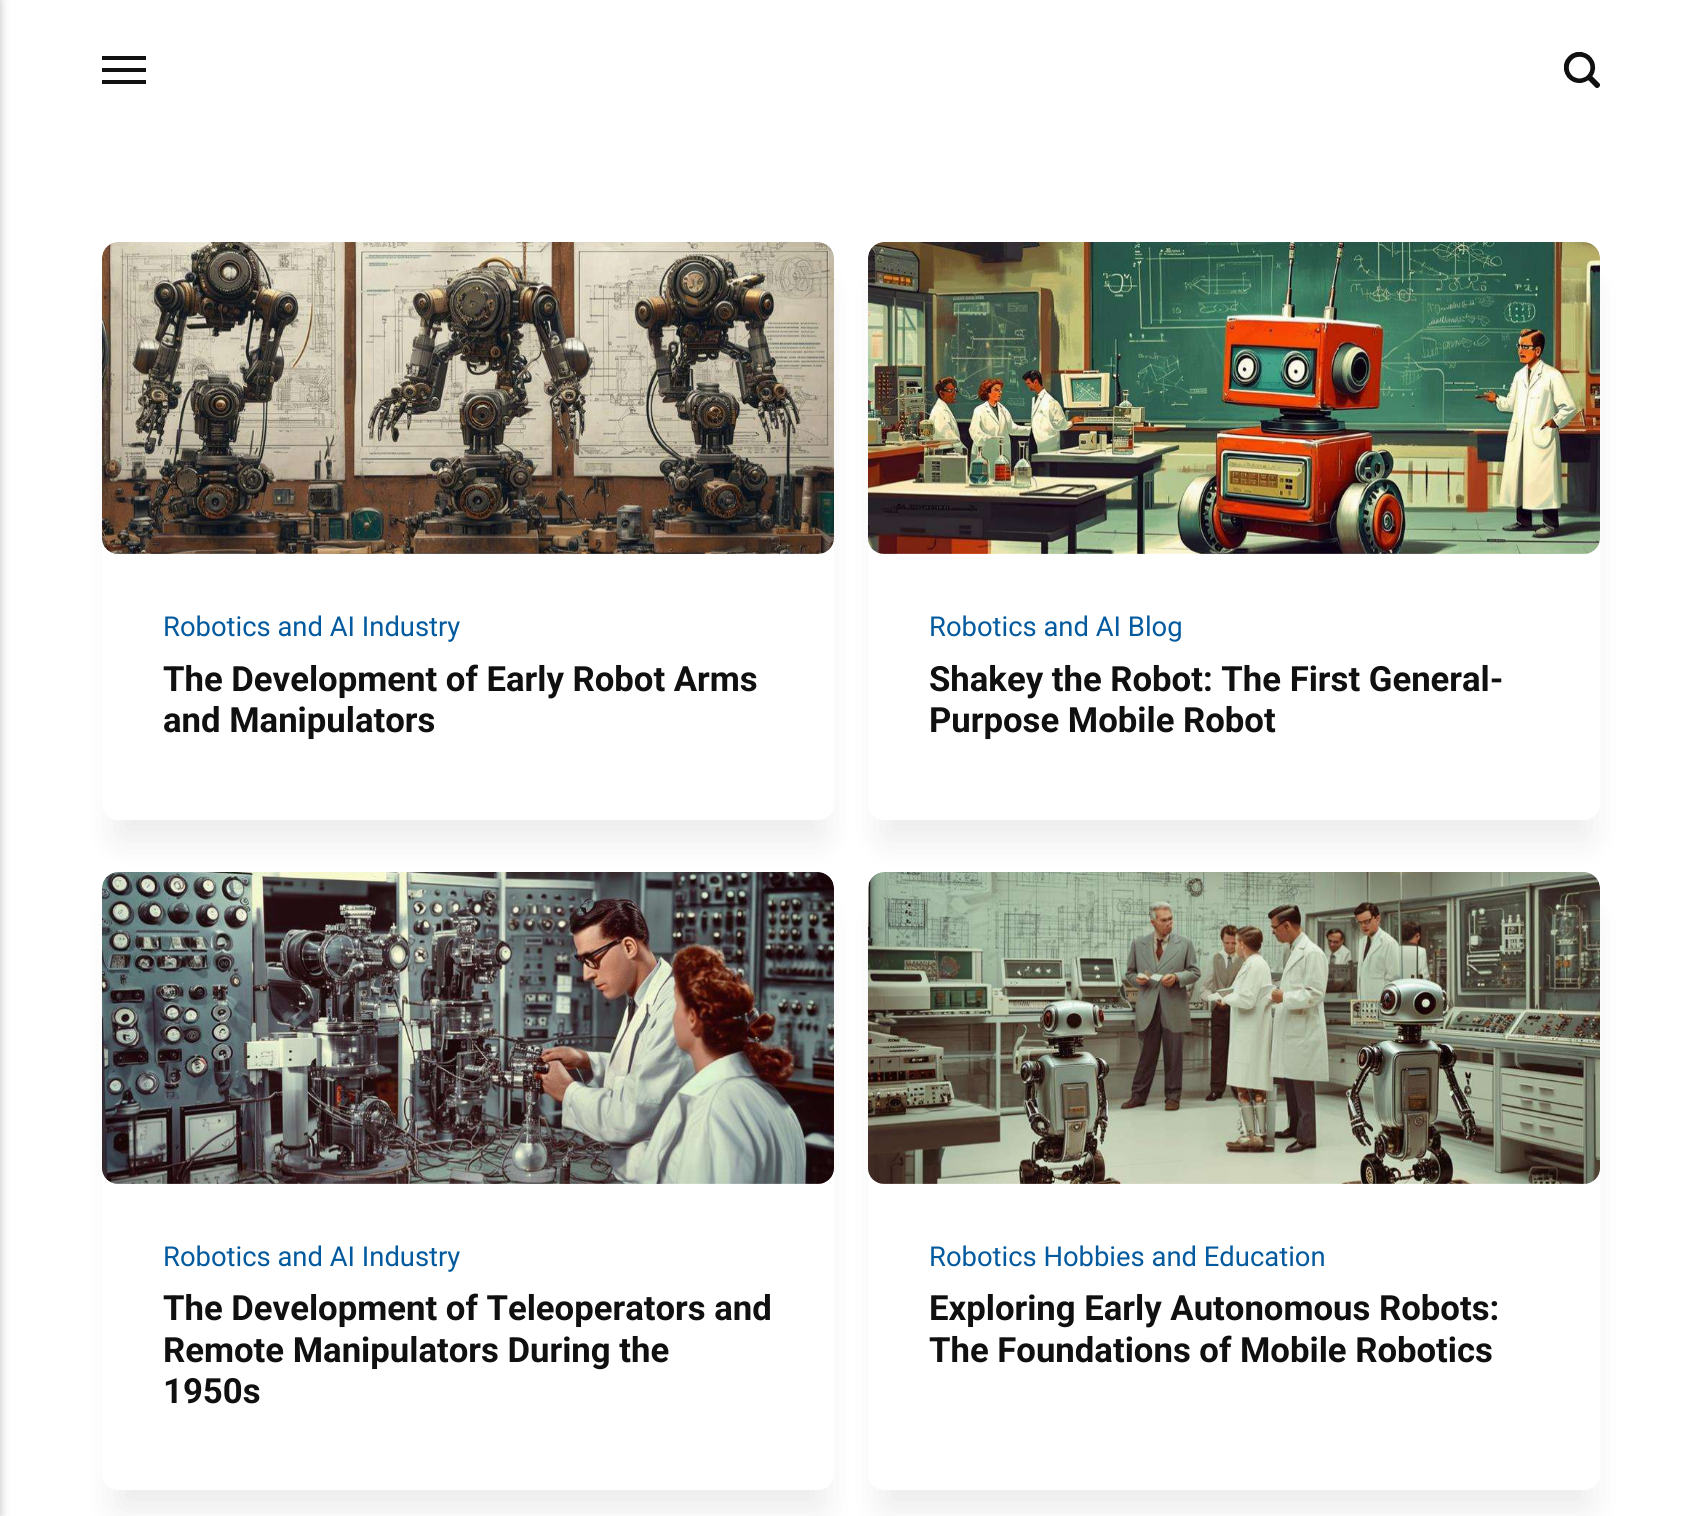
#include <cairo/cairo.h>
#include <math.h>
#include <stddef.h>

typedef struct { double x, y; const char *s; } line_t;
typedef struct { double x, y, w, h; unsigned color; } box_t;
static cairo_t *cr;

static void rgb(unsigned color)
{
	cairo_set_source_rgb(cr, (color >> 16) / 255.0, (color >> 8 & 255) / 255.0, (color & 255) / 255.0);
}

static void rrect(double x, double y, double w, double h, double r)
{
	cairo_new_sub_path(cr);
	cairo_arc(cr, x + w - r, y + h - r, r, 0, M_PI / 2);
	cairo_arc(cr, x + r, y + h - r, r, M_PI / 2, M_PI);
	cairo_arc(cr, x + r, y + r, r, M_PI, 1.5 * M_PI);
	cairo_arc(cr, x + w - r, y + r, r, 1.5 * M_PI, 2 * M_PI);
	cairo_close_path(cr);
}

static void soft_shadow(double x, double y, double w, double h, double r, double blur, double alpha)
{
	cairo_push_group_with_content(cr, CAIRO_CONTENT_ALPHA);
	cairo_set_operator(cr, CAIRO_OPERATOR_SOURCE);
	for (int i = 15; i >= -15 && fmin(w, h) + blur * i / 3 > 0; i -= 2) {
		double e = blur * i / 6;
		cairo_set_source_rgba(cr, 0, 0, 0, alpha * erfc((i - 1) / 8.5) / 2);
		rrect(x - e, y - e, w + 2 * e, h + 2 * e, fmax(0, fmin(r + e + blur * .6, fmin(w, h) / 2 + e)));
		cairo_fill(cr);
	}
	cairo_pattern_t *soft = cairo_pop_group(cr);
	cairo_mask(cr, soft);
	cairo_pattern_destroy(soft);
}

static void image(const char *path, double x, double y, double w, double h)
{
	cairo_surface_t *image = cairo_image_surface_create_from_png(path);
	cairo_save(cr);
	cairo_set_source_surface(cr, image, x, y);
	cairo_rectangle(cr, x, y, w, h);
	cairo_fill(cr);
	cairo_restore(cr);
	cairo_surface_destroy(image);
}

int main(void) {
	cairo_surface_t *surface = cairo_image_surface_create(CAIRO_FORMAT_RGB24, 1702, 1516);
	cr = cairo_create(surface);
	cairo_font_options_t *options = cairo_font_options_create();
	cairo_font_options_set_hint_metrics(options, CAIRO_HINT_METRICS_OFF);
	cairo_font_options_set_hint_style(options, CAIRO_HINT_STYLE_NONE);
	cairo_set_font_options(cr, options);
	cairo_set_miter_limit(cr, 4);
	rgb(0xffffff);
	cairo_paint(cr);
	rgb(0x000000);
	soft_shadow(-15, 0, 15, 1516, 0, 5, 0.25);
	{
		static const box_t items[] = {
			{102, 68, 44, 4, 0x101011},
			{102, 56, 44, 4, 0x101011},
			{102, 80, 44, 4, 0x101011},
		};
		for (size_t i = 0; i < sizeof items / sizeof *items; i++) {
			rgb(items[i].color);
			cairo_rectangle(cr, items[i].x, items[i].y, items[i].w, items[i].h);
			cairo_fill(cr);
		}
	}
	image("img/1.png", 1564, 52, 36, 36);
	rgb(0x000000);
	soft_shadow(116, 286, 708, 554, 4, 18, 0.08);
	rgb(0xffffff);
	rrect(102, 242, 732, 578, 16);
	cairo_fill(cr);
	image("img/2.png", 102, 242, 732, 312);
	rgb(0x000000);
	soft_shadow(882, 286, 708, 554, 4, 18, 0.08);
	rgb(0xffffff);
	rrect(868, 242, 732, 578, 16);
	cairo_fill(cr);
	image("img/3.png", 868, 242, 732, 312);
	rgb(0x000000);
	soft_shadow(116, 916, 708, 594, 4, 18, 0.08);
	rgb(0xffffff);
	rrect(102, 872, 732, 618, 16);
	cairo_fill(cr);
	image("img/4.png", 102, 872, 732, 312);
	rgb(0x000000);
	soft_shadow(882, 916, 708, 594, 4, 18, 0.08);
	rgb(0xffffff);
	rrect(868, 872, 732, 618, 16);
	cairo_fill(cr);
	image("img/5.png", 868, 872, 732, 312);
	cairo_select_font_face(cr, "Roboto", CAIRO_FONT_SLANT_NORMAL, CAIRO_FONT_WEIGHT_NORMAL);
	cairo_set_font_size(cr, 27.4);
	rgb(0x035a9e);
	cairo_move_to(cr, 163, 636);
	cairo_show_text(cr, "Robotics and AI Industry");
	cairo_select_font_face(cr, "Roboto", CAIRO_FONT_SLANT_NORMAL, CAIRO_FONT_WEIGHT_BOLD);
	cairo_set_font_size(cr, 34.7);
	rgb(0x101011);
	cairo_move_to(cr, 163, 691);
	cairo_show_text(cr, "The Development of Early Robot Arms");
	cairo_move_to(cr, 163, 732);
	cairo_show_text(cr, "and Manipulators");
	cairo_select_font_face(cr, "Roboto", CAIRO_FONT_SLANT_NORMAL, CAIRO_FONT_WEIGHT_NORMAL);
	cairo_set_font_size(cr, 27.4);
	rgb(0x035a9e);
	cairo_move_to(cr, 929, 636);
	cairo_show_text(cr, "Robotics and AI Blog");
	cairo_select_font_face(cr, "Roboto", CAIRO_FONT_SLANT_NORMAL, CAIRO_FONT_WEIGHT_BOLD);
	cairo_set_font_size(cr, 34.7);
	rgb(0x101011);
	cairo_move_to(cr, 929, 691);
	cairo_show_text(cr, "Shakey the Robot: The First General-");
	cairo_move_to(cr, 929, 732);
	cairo_show_text(cr, "Purpose Mobile Robot");
	cairo_select_font_face(cr, "Roboto", CAIRO_FONT_SLANT_NORMAL, CAIRO_FONT_WEIGHT_NORMAL);
	cairo_set_font_size(cr, 27.4);
	rgb(0x035a9e);
	cairo_move_to(cr, 163, 1266);
	cairo_show_text(cr, "Robotics and AI Industry");
	cairo_select_font_face(cr, "Roboto", CAIRO_FONT_SLANT_NORMAL, CAIRO_FONT_WEIGHT_BOLD);
	cairo_set_font_size(cr, 34.7);
	rgb(0x101011);
	{
		static const line_t items[] = {
			{163, 1320, "The Development of Teleoperators and"},
			{163, 1362, "Remote Manipulators During the"},
			{163, 1403, "1950s"},
		};
		for (size_t i = 0; i < sizeof items / sizeof *items; i++) {
			cairo_move_to(cr, items[i].x, items[i].y);
			cairo_show_text(cr, items[i].s);
		}
	}
	cairo_select_font_face(cr, "Roboto", CAIRO_FONT_SLANT_NORMAL, CAIRO_FONT_WEIGHT_NORMAL);
	cairo_set_font_size(cr, 27.4);
	rgb(0x035a9e);
	cairo_move_to(cr, 929, 1266);
	cairo_show_text(cr, "Robotics Hobbies and Education");
	cairo_select_font_face(cr, "Roboto", CAIRO_FONT_SLANT_NORMAL, CAIRO_FONT_WEIGHT_BOLD);
	cairo_set_font_size(cr, 34.7);
	rgb(0x101011);
	cairo_move_to(cr, 929, 1320);
	cairo_show_text(cr, "Exploring Early Autonomous Robots:");
	cairo_move_to(cr, 929, 1362);
	cairo_show_text(cr, "The Foundations of Mobile Robotics");
	cairo_surface_write_to_png(surface, "page.png");
	cairo_font_options_destroy(options);
	cairo_destroy(cr);
	cairo_surface_destroy(surface);
	return 0;
}
